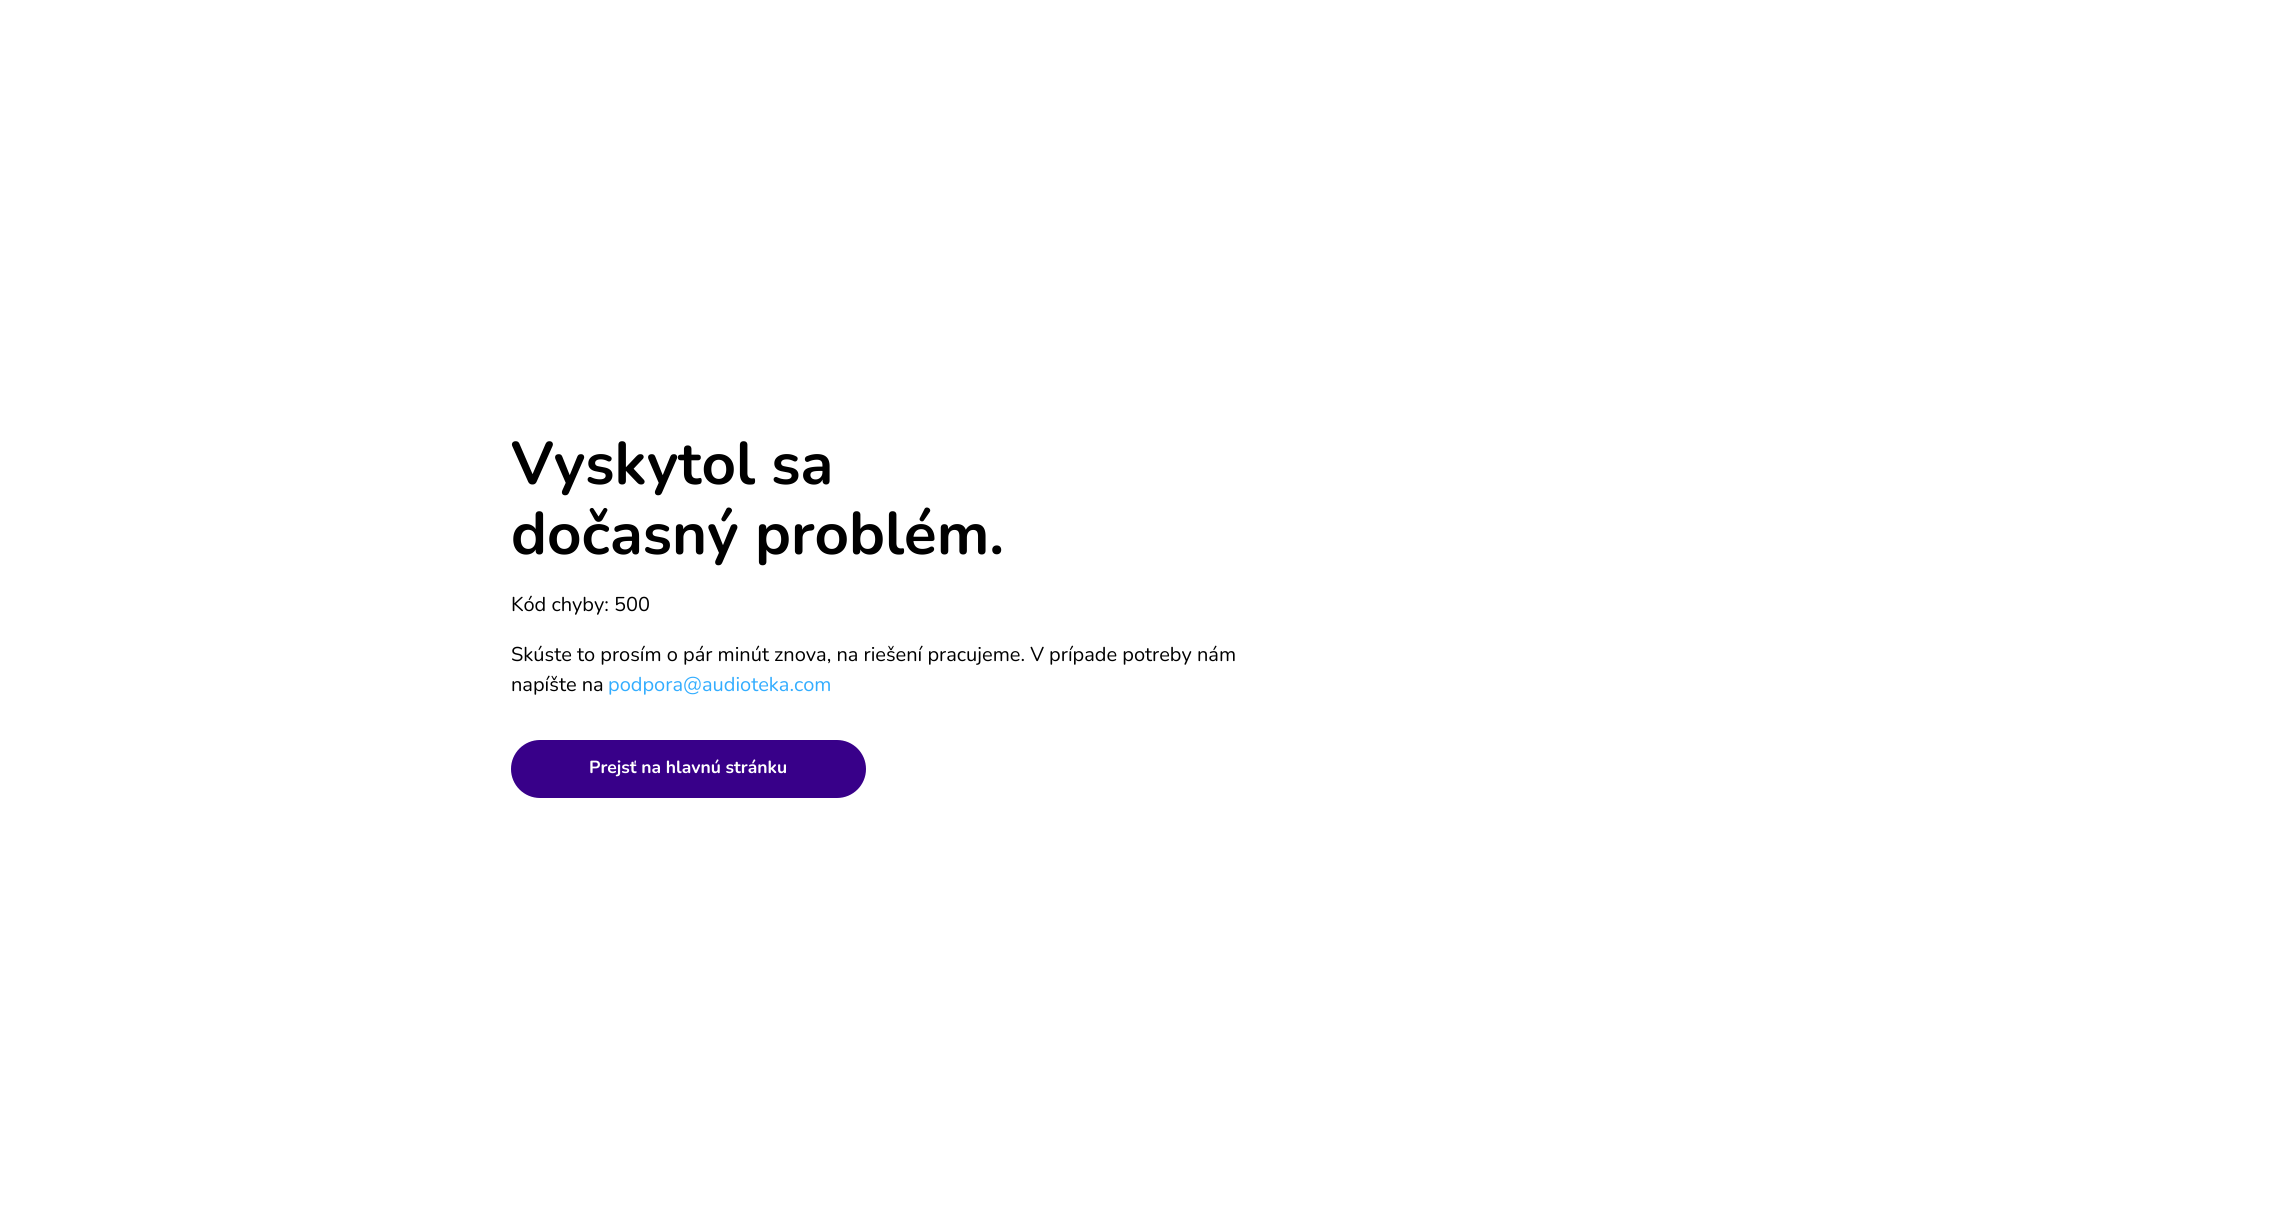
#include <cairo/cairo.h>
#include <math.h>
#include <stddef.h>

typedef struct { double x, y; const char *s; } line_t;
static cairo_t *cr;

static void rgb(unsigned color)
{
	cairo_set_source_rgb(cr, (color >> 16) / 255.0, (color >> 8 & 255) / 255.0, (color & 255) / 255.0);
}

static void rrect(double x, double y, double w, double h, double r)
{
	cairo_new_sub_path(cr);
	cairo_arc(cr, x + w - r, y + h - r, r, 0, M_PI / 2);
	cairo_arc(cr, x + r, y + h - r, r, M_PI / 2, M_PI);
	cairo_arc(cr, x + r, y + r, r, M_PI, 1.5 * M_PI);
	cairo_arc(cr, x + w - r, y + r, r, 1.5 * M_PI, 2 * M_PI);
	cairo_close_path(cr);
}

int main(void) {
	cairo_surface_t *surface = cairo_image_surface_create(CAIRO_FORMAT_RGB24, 2293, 1226);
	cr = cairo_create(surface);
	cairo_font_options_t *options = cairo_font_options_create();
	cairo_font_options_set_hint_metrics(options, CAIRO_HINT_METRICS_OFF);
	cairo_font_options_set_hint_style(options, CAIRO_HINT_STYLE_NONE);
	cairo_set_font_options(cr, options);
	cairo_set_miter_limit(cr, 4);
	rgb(0xffffff);
	cairo_paint(cr);
	rgb(0x380089);
	rrect(511, 740, 355, 58, 29);
	cairo_fill(cr);
	cairo_select_font_face(cr, "Nunito", CAIRO_FONT_SLANT_NORMAL, CAIRO_FONT_WEIGHT_BOLD);
	cairo_set_font_size(cr, 60);
	rgb(0x000000);
	cairo_move_to(cr, 511, 484);
	cairo_show_text(cr, "Vyskytol sa");
	cairo_move_to(cr, 511, 554);
	cairo_show_text(cr, "dočasný problém.");
	cairo_select_font_face(cr, "Nunito", CAIRO_FONT_SLANT_NORMAL, CAIRO_FONT_WEIGHT_NORMAL);
	cairo_set_font_size(cr, 20);
	{
		static const line_t items[] = {
			{511, 611, "Kód chyby: 500"},
			{511, 661, "Skúste to prosím o pár minút znova, na riešení pracujeme. V prípade potreby nám"},
			{511, 691, "napíšte na"},
		};
		for (size_t i = 0; i < sizeof items / sizeof *items; i++) {
			cairo_move_to(cr, items[i].x, items[i].y);
			cairo_show_text(cr, items[i].s);
		}
	}
	rgb(0x33adff);
	cairo_move_to(cr, 608, 691);
	cairo_show_text(cr, "podpora@audioteka.com");
	cairo_select_font_face(cr, "Nunito", CAIRO_FONT_SLANT_NORMAL, CAIRO_FONT_WEIGHT_BOLD);
	cairo_set_font_size(cr, 17.5);
	rgb(0xffffff);
	cairo_move_to(cr, 589, 773);
	cairo_show_text(cr, "Prejsť na hlavnú stránku");
	cairo_surface_write_to_png(surface, "page.png");
	cairo_font_options_destroy(options);
	cairo_destroy(cr);
	cairo_surface_destroy(surface);
	return 0;
}
